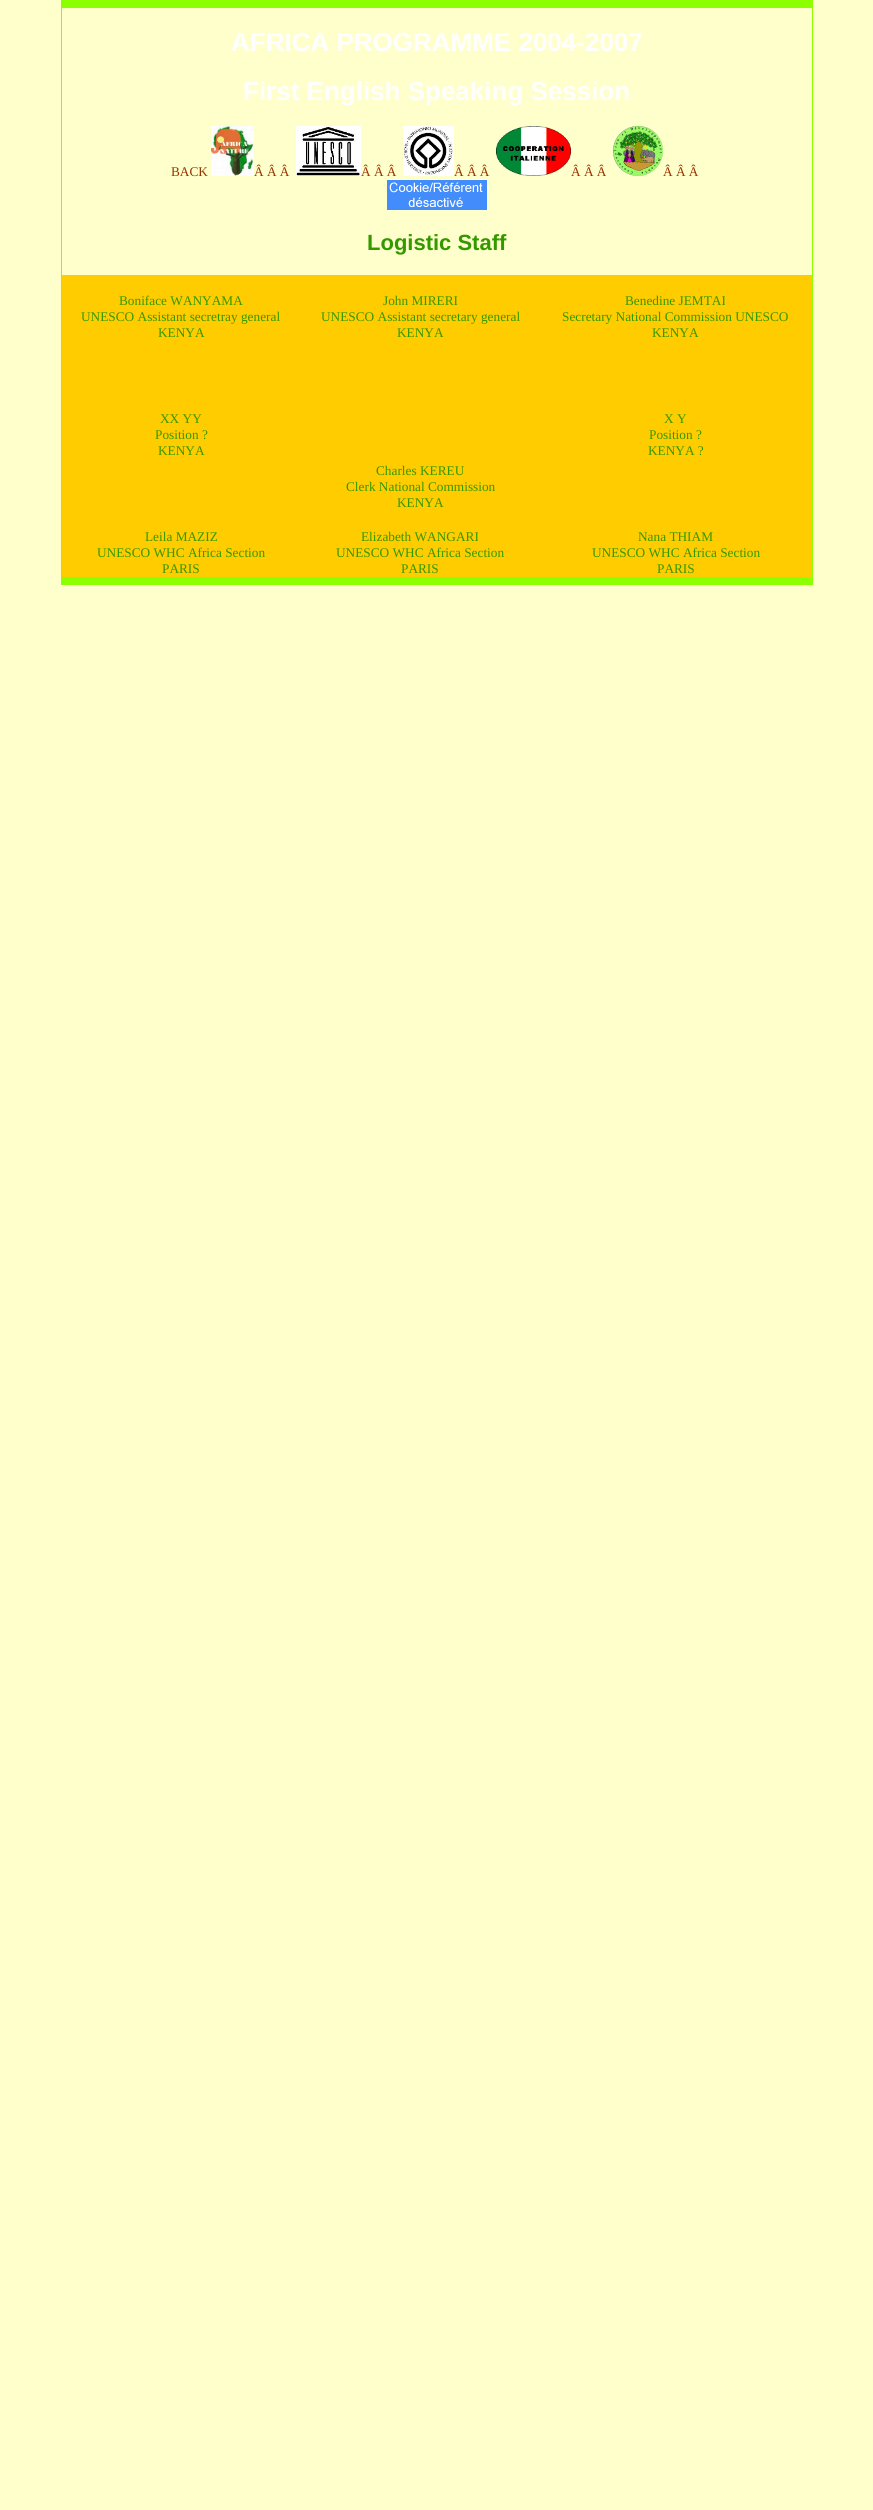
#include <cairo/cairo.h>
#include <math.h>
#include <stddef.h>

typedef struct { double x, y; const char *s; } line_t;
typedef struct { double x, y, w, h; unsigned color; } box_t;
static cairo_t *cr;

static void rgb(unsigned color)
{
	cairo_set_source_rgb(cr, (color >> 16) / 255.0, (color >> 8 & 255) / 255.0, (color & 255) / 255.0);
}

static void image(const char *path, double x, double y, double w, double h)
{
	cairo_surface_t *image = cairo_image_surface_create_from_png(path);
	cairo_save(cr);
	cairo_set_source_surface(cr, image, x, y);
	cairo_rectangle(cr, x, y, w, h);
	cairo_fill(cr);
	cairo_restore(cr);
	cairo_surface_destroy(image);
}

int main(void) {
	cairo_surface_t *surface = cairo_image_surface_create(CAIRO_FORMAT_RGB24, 873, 2510);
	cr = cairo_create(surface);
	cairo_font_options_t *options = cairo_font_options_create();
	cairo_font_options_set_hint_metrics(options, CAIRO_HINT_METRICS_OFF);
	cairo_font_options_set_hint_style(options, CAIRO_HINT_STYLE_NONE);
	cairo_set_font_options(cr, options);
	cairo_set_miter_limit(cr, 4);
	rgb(0xffffcc);
	cairo_paint(cr);
	{
		static const box_t items[] = {
			{61, 0, 752, 8, 0x8cff00},
			{812, 0, 1, 585, 0x8cff00},
			{61, 577, 752, 8, 0x8cff00},
			{61, 0, 1, 585, 0x8cff00},
		};
		for (size_t i = 0; i < sizeof items / sizeof *items; i++) {
			rgb(items[i].color);
			cairo_rectangle(cr, items[i].x, items[i].y, items[i].w, items[i].h);
			cairo_fill(cr);
		}
	}
	image("img/1.png", 211, 126, 43, 50);
	image("img/2.png", 296, 126, 65, 50);
	image("img/3.png", 403, 126, 51, 50);
	image("img/4.png", 496, 126, 75, 50);
	image("img/5.png", 613, 126, 50, 50);
	image("img/6.png", 387, 180, 100, 30);
	{
		static const box_t items[] = {
			{62, 275, 750, 66, 0xffcc00},
			{62, 341, 750, 170, 0xffcc00},
			{62, 511, 750, 66, 0xffcc00},
		};
		for (size_t i = 0; i < sizeof items / sizeof *items; i++) {
			rgb(items[i].color);
			cairo_rectangle(cr, items[i].x, items[i].y, items[i].w, items[i].h);
			cairo_fill(cr);
		}
	}
	cairo_select_font_face(cr, "Liberation Sans", CAIRO_FONT_SLANT_NORMAL, CAIRO_FONT_WEIGHT_BOLD);
	cairo_set_font_size(cr, 26);
	rgb(0xffffff);
	cairo_move_to(cr, 231, 51);
	cairo_show_text(cr, "AFRICA PROGRAMME 2004-2007");
	cairo_move_to(cr, 243, 100);
	cairo_show_text(cr, "First English Speaking Session");
	cairo_select_font_face(cr, "Liberation Serif", CAIRO_FONT_SLANT_NORMAL, CAIRO_FONT_WEIGHT_NORMAL);
	cairo_set_font_size(cr, 13.3);
	rgb(0x993300);
	{
		static const line_t items[] = {
			{171, 176, "BACK"},
			{254, 176, "Â Â Â"},
			{361, 176, "Â Â Â"},
			{454, 176, "Â Â Â"},
			{571, 176, "Â Â Â"},
			{663, 176, "Â Â Â"},
		};
		for (size_t i = 0; i < sizeof items / sizeof *items; i++) {
			cairo_move_to(cr, items[i].x, items[i].y);
			cairo_show_text(cr, items[i].s);
		}
	}
	cairo_select_font_face(cr, "Liberation Sans", CAIRO_FONT_SLANT_NORMAL, CAIRO_FONT_WEIGHT_BOLD);
	cairo_set_font_size(cr, 22);
	rgb(0x339900);
	cairo_move_to(cr, 367, 250);
	cairo_show_text(cr, "Logistic Staff");
	cairo_select_font_face(cr, "Liberation Serif", CAIRO_FONT_SLANT_NORMAL, CAIRO_FONT_WEIGHT_NORMAL);
	cairo_set_font_size(cr, 13.3);
	{
		static const line_t items[] = {
			{119, 305, "Boniface WANYAMA"},
			{81, 321, "UNESCO Assistant secretray general"},
			{158, 337, "KENYA"},
			{383, 305, "John MIRERI"},
			{321, 321, "UNESCO Assistant secretary general"},
			{397, 337, "KENYA"},
			{625, 305, "Benedine JEMTAI"},
			{562, 321, "Secretary National Commission UNESCO"},
			{652, 337, "KENYA"},
			{160, 423, "XX YY"},
			{155, 439, "Position ?"},
			{158, 455, "KENYA"},
			{664, 423, "X Y"},
			{649, 439, "Position ?"},
			{648, 455, "KENYA ?"},
			{376, 475, "Charles KEREU"},
			{346, 491, "Clerk National Commission"},
			{397, 507, "KENYA"},
			{145, 541, "Leila MAZIZ"},
			{97, 557, "UNESCO WHC Africa Section"},
			{162, 573, "PARIS"},
			{361, 541, "Elizabeth WANGARI"},
			{336, 557, "UNESCO WHC Africa Section"},
			{401, 573, "PARIS"},
			{638, 541, "Nana THIAM"},
			{592, 557, "UNESCO WHC Africa Section"},
			{657, 573, "PARIS"},
		};
		for (size_t i = 0; i < sizeof items / sizeof *items; i++) {
			cairo_move_to(cr, items[i].x, items[i].y);
			cairo_show_text(cr, items[i].s);
		}
	}
	cairo_surface_write_to_png(surface, "page.png");
	cairo_font_options_destroy(options);
	cairo_destroy(cr);
	cairo_surface_destroy(surface);
	return 0;
}
